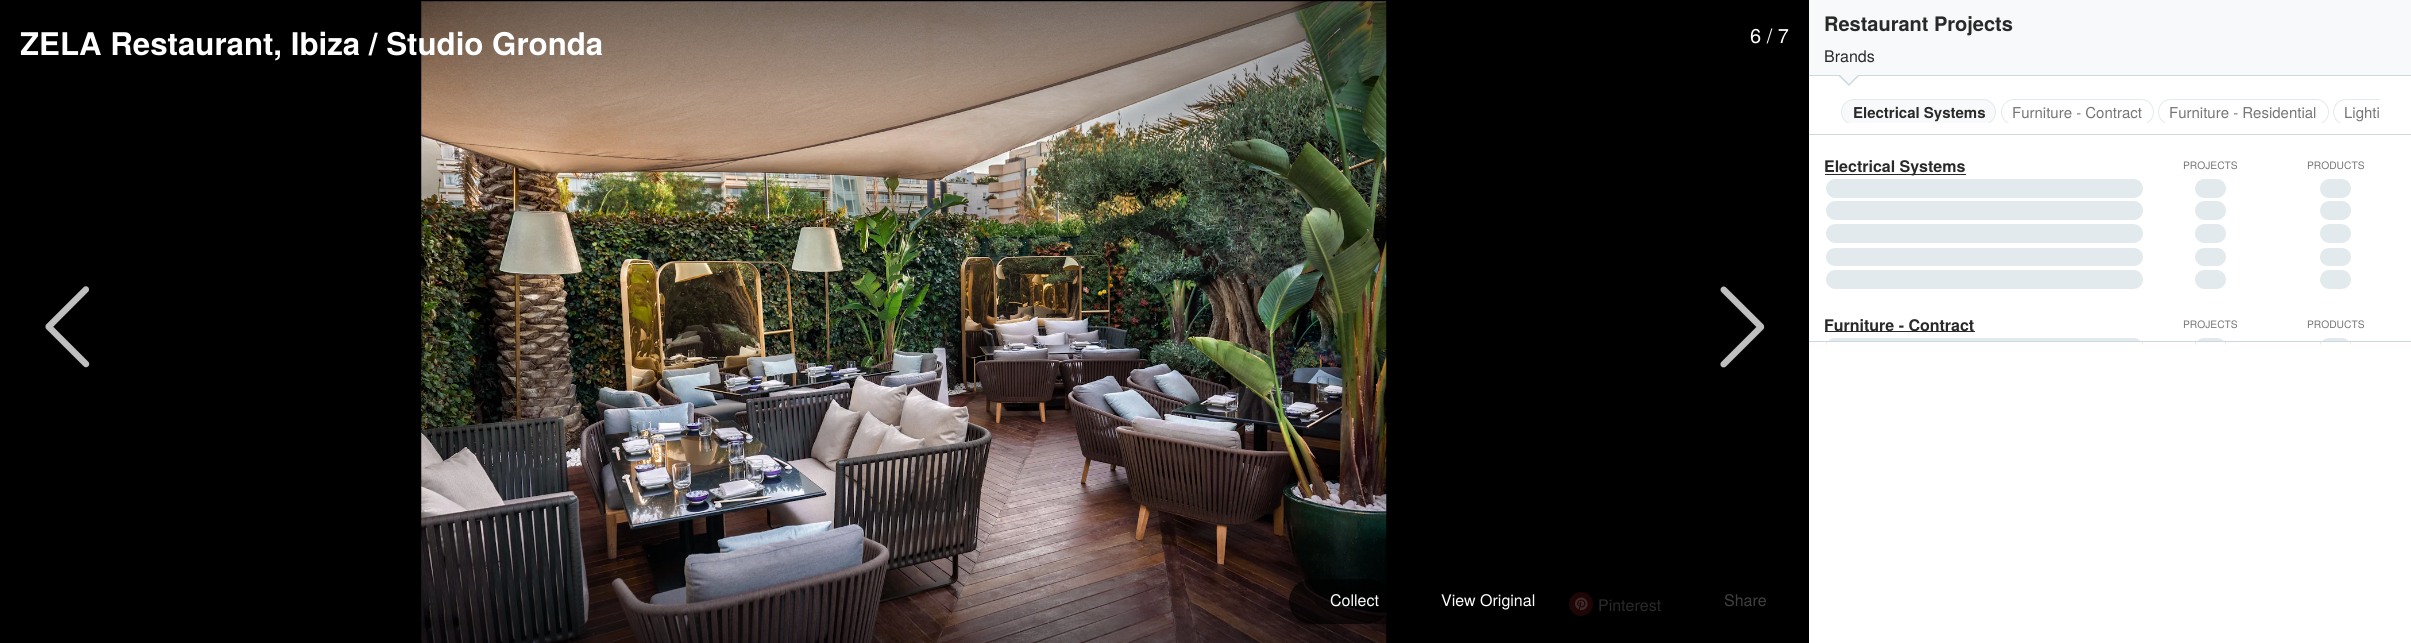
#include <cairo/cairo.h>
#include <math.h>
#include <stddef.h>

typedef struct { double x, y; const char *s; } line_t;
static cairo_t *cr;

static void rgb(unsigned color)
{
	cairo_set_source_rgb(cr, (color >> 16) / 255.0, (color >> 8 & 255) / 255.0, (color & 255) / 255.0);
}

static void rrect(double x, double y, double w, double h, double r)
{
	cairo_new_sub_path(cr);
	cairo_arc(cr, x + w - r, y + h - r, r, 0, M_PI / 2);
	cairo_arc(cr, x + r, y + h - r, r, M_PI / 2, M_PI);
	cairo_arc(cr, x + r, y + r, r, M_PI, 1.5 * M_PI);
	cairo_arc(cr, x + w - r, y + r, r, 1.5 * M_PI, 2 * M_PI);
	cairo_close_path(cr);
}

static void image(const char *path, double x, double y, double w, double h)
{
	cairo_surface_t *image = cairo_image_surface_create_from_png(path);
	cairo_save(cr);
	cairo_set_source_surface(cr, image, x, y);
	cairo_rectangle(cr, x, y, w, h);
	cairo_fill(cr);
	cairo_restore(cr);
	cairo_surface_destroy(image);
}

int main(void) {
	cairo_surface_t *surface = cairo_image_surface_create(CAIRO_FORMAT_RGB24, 2411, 643);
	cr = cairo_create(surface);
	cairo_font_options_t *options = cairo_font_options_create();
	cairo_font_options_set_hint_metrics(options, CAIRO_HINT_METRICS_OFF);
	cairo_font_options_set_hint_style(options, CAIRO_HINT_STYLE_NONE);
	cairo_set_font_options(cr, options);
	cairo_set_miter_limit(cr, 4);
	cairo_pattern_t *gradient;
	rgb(0xffffff);
	cairo_paint(cr);
	rgb(0x000000);
	cairo_rectangle(cr, 0, 0, 1809, 643);
	cairo_fill(cr);
	image("img/1.png", 421, 1, 966, 642);
	gradient = cairo_pattern_create_linear(904, 0, 904, 156);
	cairo_pattern_add_color_stop_rgba(gradient, 0, 0, 0, 0, 0.5);
	cairo_pattern_add_color_stop_rgba(gradient, 1, 0, 0, 0, 0);
	cairo_set_source(cr, gradient);
	cairo_pattern_destroy(gradient);
	cairo_rectangle(cr, 421, 1, 966, 148);
	cairo_fill(cr);
	image("img/2.png", 45, 286, 45, 82);
	image("img/3.png", 1720, 286, 45, 82);
	gradient = cairo_pattern_create_linear(904, 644, 904, 519);
	cairo_pattern_add_color_stop_rgba(gradient, 0, 0, 0, 0, 0.5);
	cairo_pattern_add_color_stop_rgba(gradient, 1, 0, 0, 0, 0);
	cairo_set_source(cr, gradient);
	cairo_pattern_destroy(gradient);
	cairo_rectangle(cr, 421, 524, 966, 119);
	cairo_fill(cr);
	cairo_set_source_rgba(cr, 0, 0, 0, 0.65);
	rrect(1289, 579, 101, 45, 22.5);
	cairo_fill(cr);
	image("img/4.png", 1569, 592, 24, 24);
	rgb(0xf7f9fa);
	cairo_rectangle(cr, 1809, 0, 602, 75);
	cairo_fill(cr);
	rgb(0xced9df);
	cairo_rectangle(cr, 1809, 75, 602, 1);
	cairo_fill(cr);
	cairo_new_path(cr);
	cairo_move_to(cr, 1837.5, 75);
	cairo_line_to(cr, 1860, 75);
	cairo_line_to(cr, 1849, 86);
	cairo_close_path(cr);
	cairo_fill(cr);
	rgb(0xf7f9fa);
	cairo_new_path(cr);
	cairo_move_to(cr, 1839, 74);
	cairo_line_to(cr, 1859, 74);
	cairo_line_to(cr, 1849, 84);
	cairo_close_path(cr);
	cairo_fill(cr);
	cairo_save(cr);
	cairo_rectangle(cr, 1840, 91, 540, 32);
	cairo_clip(cr);
	rrect(1841.5, 99.5, 154, 25, 12.5);
	cairo_fill_preserve(cr);
	rgb(0xe3eaed);
	cairo_set_line_width(cr, 1);
	cairo_stroke(cr);
	rrect(2001.5, 99.5, 152, 25, 12.5);
	cairo_stroke(cr);
	rrect(2158.5, 99.5, 170, 25, 12.5);
	cairo_stroke(cr);
	rrect(2333.5, 99.5, 74, 25, 12.5);
	cairo_stroke(cr);
	cairo_restore(cr);
	rgb(0xced9df);
	cairo_rectangle(cr, 1809, 134, 602, 1);
	cairo_fill(cr);
	rgb(0x292929);
	cairo_rectangle(cr, 1825, 174, 141, 1);
	cairo_fill(cr);
	rgb(0xe3eaed);
	rrect(1826, 179, 317, 19, 9.5);
	cairo_fill(cr);
	rrect(2195, 179, 31, 19, 9.5);
	cairo_fill(cr);
	rrect(2320, 179, 31, 19, 9.5);
	cairo_fill(cr);
	rrect(1826, 201, 317, 19, 9.5);
	cairo_fill(cr);
	rrect(2195, 201, 31, 19, 9.5);
	cairo_fill(cr);
	rrect(2320, 201, 31, 19, 9.5);
	cairo_fill(cr);
	rrect(1826, 224, 317, 19, 9.5);
	cairo_fill(cr);
	rrect(2195, 224, 31, 19, 9.5);
	cairo_fill(cr);
	rrect(2320, 224, 31, 19, 9.5);
	cairo_fill(cr);
	rrect(1826, 248, 317, 18, 9);
	cairo_fill(cr);
	rrect(2195, 248, 31, 18, 9);
	cairo_fill(cr);
	rrect(2320, 248, 31, 18, 9);
	cairo_fill(cr);
	rrect(1826, 270, 317, 19, 9.5);
	cairo_fill(cr);
	rrect(2195, 270, 31, 19, 9.5);
	cairo_fill(cr);
	rrect(2320, 270, 31, 19, 9.5);
	cairo_fill(cr);
	rgb(0x292929);
	cairo_rectangle(cr, 1825, 331, 150, 1);
	cairo_fill(cr);
	rgb(0xe3eaed);
	cairo_new_path(cr);
	cairo_move_to(cr, 1835, 338);
	cairo_line_to(cr, 2134, 338);
	cairo_curve_to(cr, 2139, 338, 2143, 342, 2143, 347);
	cairo_line_to(cr, 2143, 341);
	cairo_line_to(cr, 1826, 341);
	cairo_line_to(cr, 1826, 347);
	cairo_curve_to(cr, 1826, 342, 1830, 338, 1835, 338);
	cairo_close_path(cr);
	cairo_fill(cr);
	cairo_new_path(cr);
	cairo_move_to(cr, 2204, 338);
	cairo_line_to(cr, 2217, 338);
	cairo_curve_to(cr, 2222, 338, 2226, 342, 2226, 347);
	cairo_line_to(cr, 2226, 341);
	cairo_line_to(cr, 2195, 341);
	cairo_line_to(cr, 2195, 347);
	cairo_curve_to(cr, 2195, 342, 2199, 338, 2204, 338);
	cairo_close_path(cr);
	cairo_fill(cr);
	cairo_new_path(cr);
	cairo_move_to(cr, 2329, 338);
	cairo_line_to(cr, 2342, 338);
	cairo_curve_to(cr, 2347, 338, 2351, 342, 2351, 347);
	cairo_line_to(cr, 2351, 341);
	cairo_line_to(cr, 2320, 341);
	cairo_line_to(cr, 2320, 347);
	cairo_curve_to(cr, 2320, 342, 2324, 338, 2329, 338);
	cairo_close_path(cr);
	cairo_fill(cr);
	rgb(0xced9df);
	cairo_rectangle(cr, 1809, 341, 602, 1);
	cairo_fill(cr);
	cairo_select_font_face(cr, "TeX Gyre Heros", CAIRO_FONT_SLANT_NORMAL, CAIRO_FONT_WEIGHT_BOLD);
	cairo_set_font_size(cr, 31.25);
	rgb(0xffffff);
	cairo_move_to(cr, 20, 55);
	cairo_show_text(cr, "ZELA Restaurant, Ibiza / Studio Gronda");
	cairo_select_font_face(cr, "TeX Gyre Heros", CAIRO_FONT_SLANT_NORMAL, CAIRO_FONT_WEIGHT_NORMAL);
	cairo_set_font_size(cr, 20);
	cairo_move_to(cr, 1750, 43);
	cairo_show_text(cr, "6 / 7");
	cairo_set_font_size(cr, 16);
	cairo_move_to(cr, 1330, 606);
	cairo_show_text(cr, "Collect");
	cairo_move_to(cr, 1441, 606);
	cairo_show_text(cr, "View Original");
	rgb(0x292929);
	cairo_move_to(cr, 1598, 611);
	cairo_show_text(cr, "Pinterest");
	rgb(0x404040);
	cairo_move_to(cr, 1724, 606);
	cairo_show_text(cr, "Share");
	cairo_select_font_face(cr, "TeX Gyre Heros", CAIRO_FONT_SLANT_NORMAL, CAIRO_FONT_WEIGHT_BOLD);
	cairo_set_font_size(cr, 20);
	rgb(0x292929);
	cairo_move_to(cr, 1824, 31);
	cairo_show_text(cr, "Restaurant Projects");
	cairo_select_font_face(cr, "TeX Gyre Heros", CAIRO_FONT_SLANT_NORMAL, CAIRO_FONT_WEIGHT_NORMAL);
	cairo_set_font_size(cr, 16);
	cairo_move_to(cr, 1824, 62);
	cairo_show_text(cr, "Brands");
	cairo_select_font_face(cr, "TeX Gyre Heros", CAIRO_FONT_SLANT_NORMAL, CAIRO_FONT_WEIGHT_BOLD);
	cairo_set_font_size(cr, 15);
	cairo_move_to(cr, 1853, 118);
	cairo_show_text(cr, "Electrical Systems");
	cairo_select_font_face(cr, "TeX Gyre Heros", CAIRO_FONT_SLANT_NORMAL, CAIRO_FONT_WEIGHT_NORMAL);
	rgb(0x757575);
	{
		static const line_t items[] = {
			{2012, 118, "Furniture - Contract"},
			{2169, 118, "Furniture - Residential"},
			{2344, 118, "Lighti"},
		};
		for (size_t i = 0; i < sizeof items / sizeof *items; i++) {
			cairo_move_to(cr, items[i].x, items[i].y);
			cairo_show_text(cr, items[i].s);
		}
	}
	cairo_select_font_face(cr, "TeX Gyre Heros", CAIRO_FONT_SLANT_NORMAL, CAIRO_FONT_WEIGHT_BOLD);
	cairo_set_font_size(cr, 16);
	rgb(0x292929);
	cairo_move_to(cr, 1824, 172);
	cairo_show_text(cr, "Electrical Systems");
	cairo_select_font_face(cr, "TeX Gyre Heros", CAIRO_FONT_SLANT_NORMAL, CAIRO_FONT_WEIGHT_NORMAL);
	cairo_set_font_size(cr, 10.25);
	rgb(0x757575);
	cairo_move_to(cr, 2183, 169);
	cairo_show_text(cr, "PROJECTS");
	cairo_move_to(cr, 2307, 169);
	cairo_show_text(cr, "PRODUCTS");
	cairo_select_font_face(cr, "TeX Gyre Heros", CAIRO_FONT_SLANT_NORMAL, CAIRO_FONT_WEIGHT_BOLD);
	cairo_set_font_size(cr, 16);
	rgb(0x292929);
	cairo_move_to(cr, 1824, 331);
	cairo_show_text(cr, "Furniture - Contract");
	cairo_select_font_face(cr, "TeX Gyre Heros", CAIRO_FONT_SLANT_NORMAL, CAIRO_FONT_WEIGHT_NORMAL);
	cairo_set_font_size(cr, 10.25);
	rgb(0x757575);
	cairo_move_to(cr, 2183, 328);
	cairo_show_text(cr, "PROJECTS");
	cairo_move_to(cr, 2307, 328);
	cairo_show_text(cr, "PRODUCTS");
	cairo_surface_write_to_png(surface, "page.png");
	cairo_font_options_destroy(options);
	cairo_destroy(cr);
	cairo_surface_destroy(surface);
	return 0;
}
